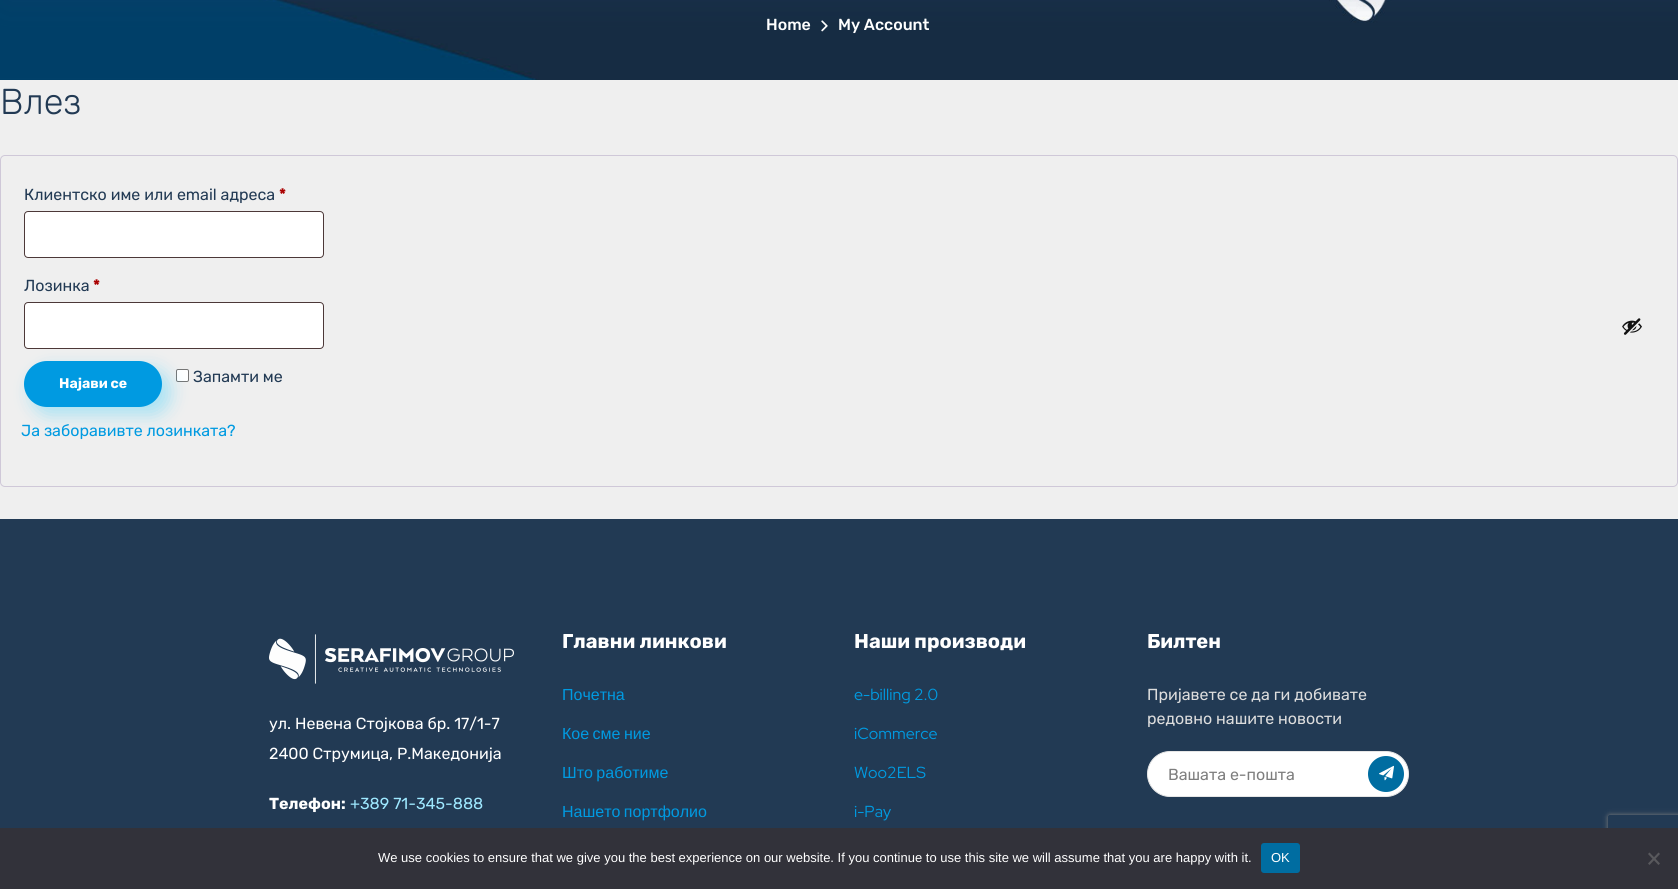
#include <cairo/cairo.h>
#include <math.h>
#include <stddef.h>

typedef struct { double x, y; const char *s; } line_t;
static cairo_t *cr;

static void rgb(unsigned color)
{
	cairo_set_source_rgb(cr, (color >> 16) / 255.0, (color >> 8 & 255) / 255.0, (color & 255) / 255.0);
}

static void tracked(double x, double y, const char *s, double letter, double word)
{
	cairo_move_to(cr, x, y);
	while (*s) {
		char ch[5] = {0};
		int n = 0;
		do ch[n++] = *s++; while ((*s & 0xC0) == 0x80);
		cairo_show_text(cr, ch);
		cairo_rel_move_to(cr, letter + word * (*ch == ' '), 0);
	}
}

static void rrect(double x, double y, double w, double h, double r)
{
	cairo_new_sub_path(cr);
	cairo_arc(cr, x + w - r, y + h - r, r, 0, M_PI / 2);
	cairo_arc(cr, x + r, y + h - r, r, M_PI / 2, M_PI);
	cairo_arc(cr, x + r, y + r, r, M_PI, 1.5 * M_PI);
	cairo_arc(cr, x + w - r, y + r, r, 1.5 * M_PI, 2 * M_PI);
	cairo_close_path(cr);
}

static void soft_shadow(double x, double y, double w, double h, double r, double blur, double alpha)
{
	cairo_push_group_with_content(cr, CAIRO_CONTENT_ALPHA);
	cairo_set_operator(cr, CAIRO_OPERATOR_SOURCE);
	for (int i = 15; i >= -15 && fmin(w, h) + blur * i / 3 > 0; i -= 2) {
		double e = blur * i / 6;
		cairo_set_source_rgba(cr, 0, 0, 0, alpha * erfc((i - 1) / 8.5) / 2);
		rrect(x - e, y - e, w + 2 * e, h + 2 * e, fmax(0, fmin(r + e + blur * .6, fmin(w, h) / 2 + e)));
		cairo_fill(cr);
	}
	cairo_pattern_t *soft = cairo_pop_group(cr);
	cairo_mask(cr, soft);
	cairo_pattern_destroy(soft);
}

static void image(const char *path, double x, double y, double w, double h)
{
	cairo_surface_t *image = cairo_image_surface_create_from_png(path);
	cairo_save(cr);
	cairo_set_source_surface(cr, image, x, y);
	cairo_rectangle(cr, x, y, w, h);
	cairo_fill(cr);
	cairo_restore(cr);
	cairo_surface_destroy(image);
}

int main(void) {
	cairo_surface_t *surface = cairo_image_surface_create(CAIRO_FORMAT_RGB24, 1678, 889);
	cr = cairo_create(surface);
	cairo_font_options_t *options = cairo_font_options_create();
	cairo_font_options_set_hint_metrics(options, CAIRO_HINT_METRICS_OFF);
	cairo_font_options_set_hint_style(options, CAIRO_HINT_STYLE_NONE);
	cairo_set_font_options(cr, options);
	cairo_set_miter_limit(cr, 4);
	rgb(0xefefef);
	cairo_paint(cr);
	image("img/1.png", 0, 0, 1678, 80);
	image("img/2.png", 821, 20, 7, 12);
	rgb(0x2a4371);
	soft_shadow(4, -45, 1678, 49, 0, 15, 0.15);
	rrect(0.5, 155.5, 1677, 331, 4.5);
	rgb(0xcfc8d8);
	cairo_set_line_width(cr, 1);
	cairo_stroke(cr);
	rgb(0xffffff);
	rrect(24, 211, 300, 47, 4);
	cairo_fill(cr);
	rrect(24.5, 211.5, 299, 46, 3.5);
	cairo_set_source_rgba(cr, 0.125, 0.027, 0.027, 0.8);
	cairo_stroke(cr);
	rgb(0xffffff);
	rrect(24, 302, 300, 47, 4);
	cairo_fill(cr);
	rrect(24.5, 302.5, 299, 46, 3.5);
	cairo_set_source_rgba(cr, 0.125, 0.027, 0.027, 0.8);
	cairo_stroke(cr);
	image("img/3.png", 1622, 318, 20, 17);
	rgb(0xffffff);
	rrect(176.5, 369.5, 12, 12, 1.5);
	cairo_fill_preserve(cr);
	rgb(0x767676);
	cairo_stroke(cr);
	rgb(0x00c3ff);
	soft_shadow(32, 369, 138, 46, 23, 9, 0.3);
	rgb(0x009ae1);
	rrect(24, 361, 138, 46, 23);
	cairo_fill(cr);
	rgb(0x223a54);
	cairo_rectangle(cr, 0, 519, 1678, 309);
	cairo_fill(cr);
	image("img/4.png", 269, 634, 245, 50);
	rgb(0xffffff);
	rrect(1147.5, 751.5, 261, 45, 22.5);
	cairo_fill_preserve(cr);
	rgb(0xe6e6e6);
	cairo_stroke(cr);
	rgb(0x006da1);
	cairo_arc(cr, 1386, 774, 18, 0, 2 * M_PI);
	cairo_fill(cr);
	image("img/5.png", 1379, 765, 15, 16);
	cairo_save(cr);
	cairo_set_fill_rule(cr, CAIRO_FILL_RULE_EVEN_ODD);
	cairo_new_path(cr);
	cairo_move_to(cr, 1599, 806);
	cairo_line_to(cr, 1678, 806);
	cairo_line_to(cr, 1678, 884);
	cairo_line_to(cr, 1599, 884);
	cairo_close_path(cr);
	cairo_move_to(cr, 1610, 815);
	cairo_line_to(cr, 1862, 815);
	cairo_curve_to(cr, 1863, 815, 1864, 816, 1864, 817);
	cairo_line_to(cr, 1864, 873);
	cairo_curve_to(cr, 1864, 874, 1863, 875, 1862, 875);
	cairo_line_to(cr, 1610, 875);
	cairo_curve_to(cr, 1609, 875, 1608, 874, 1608, 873);
	cairo_line_to(cr, 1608, 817);
	cairo_curve_to(cr, 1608, 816, 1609, 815, 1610, 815);
	cairo_close_path(cr);
	cairo_clip(cr);
	rgb(0x808080);
	soft_shadow(1608, 815, 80, 60, 2, 2.5, 1);
	cairo_restore(cr);
	rgb(0x32323a);
	cairo_rectangle(cr, 0, 828, 1678, 61);
	cairo_fill(cr);
	rgb(0x006da1);
	rrect(1261, 843, 39, 30, 3);
	cairo_fill(cr);
	rgb(0x59595d);
	cairo_new_path(cr);
	cairo_move_to(cr, 1658.5, 852.5);
	cairo_line_to(cr, 1660, 854);
	cairo_line_to(cr, 1649.5, 865);
	cairo_line_to(cr, 1648, 863.5);
	cairo_close_path(cr);
	cairo_fill(cr);
	cairo_new_path(cr);
	cairo_move_to(cr, 1648, 854);
	cairo_line_to(cr, 1649.5, 852.5);
	cairo_line_to(cr, 1660, 863.5);
	cairo_line_to(cr, 1658.5, 865);
	cairo_close_path(cr);
	cairo_fill(cr);
	cairo_select_font_face(cr, "Rubik Medium", CAIRO_FONT_SLANT_NORMAL, CAIRO_FONT_WEIGHT_NORMAL);
	cairo_set_font_size(cr, 16);
	rgb(0xffffff);
	cairo_move_to(cr, 766, 30);
	cairo_show_text(cr, "Home");
	cairo_move_to(cr, 838, 30);
	cairo_show_text(cr, "My Account");
	cairo_select_font_face(cr, "Rubik Light", CAIRO_FONT_SLANT_NORMAL, CAIRO_FONT_WEIGHT_NORMAL);
	cairo_set_font_size(cr, 36);
	rgb(0x223a54);
	cairo_move_to(cr, 0, 114);
	cairo_show_text(cr, "Влез");
	cairo_select_font_face(cr, "Rubik", CAIRO_FONT_SLANT_NORMAL, CAIRO_FONT_WEIGHT_NORMAL);
	cairo_set_font_size(cr, 16);
	cairo_move_to(cr, 24, 200);
	cairo_show_text(cr, "Клиентско име или email адреса");
	cairo_select_font_face(cr, "Rubik", CAIRO_FONT_SLANT_NORMAL, CAIRO_FONT_WEIGHT_BOLD);
	rgb(0xaa0000);
	cairo_move_to(cr, 279, 200);
	cairo_show_text(cr, "*");
	cairo_select_font_face(cr, "Rubik", CAIRO_FONT_SLANT_NORMAL, CAIRO_FONT_WEIGHT_NORMAL);
	rgb(0x223a54);
	cairo_move_to(cr, 24, 291);
	cairo_show_text(cr, "Лозинка");
	cairo_select_font_face(cr, "Rubik", CAIRO_FONT_SLANT_NORMAL, CAIRO_FONT_WEIGHT_BOLD);
	rgb(0xaa0000);
	cairo_move_to(cr, 93, 291);
	cairo_show_text(cr, "*");
	cairo_set_font_size(cr, 14);
	rgb(0xffffff);
	cairo_move_to(cr, 59, 388);
	cairo_show_text(cr, "Најави се");
	cairo_select_font_face(cr, "Rubik", CAIRO_FONT_SLANT_NORMAL, CAIRO_FONT_WEIGHT_NORMAL);
	cairo_set_font_size(cr, 16);
	rgb(0x223a54);
	cairo_move_to(cr, 193, 382);
	cairo_show_text(cr, "Запамти ме");
	rgb(0x009ae1);
	cairo_move_to(cr, 21, 436);
	cairo_show_text(cr, "Ја заборавивте лозинката?");
	rgb(0xffffff);
	cairo_move_to(cr, 269, 729);
	cairo_show_text(cr, "ул. Невена Стојкова бр. 17/1-7");
	cairo_move_to(cr, 269, 759);
	cairo_show_text(cr, "2400 Струмица, Р.Македонија");
	cairo_select_font_face(cr, "Rubik", CAIRO_FONT_SLANT_NORMAL, CAIRO_FONT_WEIGHT_BOLD);
	cairo_move_to(cr, 269, 809);
	cairo_show_text(cr, "Телефон:");
	cairo_select_font_face(cr, "Rubik", CAIRO_FONT_SLANT_NORMAL, CAIRO_FONT_WEIGHT_NORMAL);
	rgb(0x9ee8ff);
	cairo_move_to(cr, 350, 809);
	cairo_show_text(cr, "+389 71-345-888");
	cairo_select_font_face(cr, "Rubik", CAIRO_FONT_SLANT_NORMAL, CAIRO_FONT_WEIGHT_BOLD);
	cairo_set_font_size(cr, 20);
	rgb(0xffffff);
	cairo_move_to(cr, 562, 648);
	cairo_show_text(cr, "Главни линкови");
	cairo_select_font_face(cr, "Liberation Sans", CAIRO_FONT_SLANT_NORMAL, CAIRO_FONT_WEIGHT_NORMAL);
	cairo_set_font_size(cr, 16);
	rgb(0x009ae1);
	cairo_move_to(cr, 562, 700);
	cairo_show_text(cr, "Почетна");
	{
		static const line_t items[] = {
			{562, 739, "Кое сме ние"},
			{562, 778, "Што работиме"},
			{562, 817, "Нашето портфолио"},
		};
		for (size_t i = 0; i < sizeof items / sizeof *items; i++) {
			tracked(items[i].x, items[i].y, items[i].s, 0, -1);
		}
	}
	cairo_select_font_face(cr, "Rubik", CAIRO_FONT_SLANT_NORMAL, CAIRO_FONT_WEIGHT_BOLD);
	cairo_set_font_size(cr, 20);
	rgb(0xffffff);
	cairo_move_to(cr, 854, 648);
	cairo_show_text(cr, "Наши производи");
	cairo_select_font_face(cr, "Red Hat Display", CAIRO_FONT_SLANT_NORMAL, CAIRO_FONT_WEIGHT_NORMAL);
	cairo_set_font_size(cr, 16);
	rgb(0x009ae1);
	{
		static const line_t items[] = {
			{854, 700, "e-billing 2.0"},
			{854, 739, "iCommerce"},
			{854, 778, "Woo2ELS"},
			{854, 817, "i-Pay"},
		};
		for (size_t i = 0; i < sizeof items / sizeof *items; i++) {
			cairo_move_to(cr, items[i].x, items[i].y);
			cairo_show_text(cr, items[i].s);
		}
	}
	cairo_select_font_face(cr, "Rubik", CAIRO_FONT_SLANT_NORMAL, CAIRO_FONT_WEIGHT_BOLD);
	cairo_set_font_size(cr, 20);
	rgb(0xffffff);
	cairo_move_to(cr, 1147, 648);
	cairo_show_text(cr, "Билтен");
	cairo_select_font_face(cr, "Rubik", CAIRO_FONT_SLANT_NORMAL, CAIRO_FONT_WEIGHT_NORMAL);
	cairo_set_font_size(cr, 16);
	rgb(0xdddddd);
	cairo_move_to(cr, 1147, 700);
	cairo_show_text(cr, "Пријавете се да ги добивате");
	cairo_move_to(cr, 1147, 724);
	cairo_show_text(cr, "редовно нашите новости");
	rgb(0x7e7e7e);
	cairo_move_to(cr, 1168, 780);
	cairo_show_text(cr, "Вашата е-пошта");
	cairo_select_font_face(cr, "Liberation Sans", CAIRO_FONT_SLANT_NORMAL, CAIRO_FONT_WEIGHT_NORMAL);
	cairo_set_font_size(cr, 13);
	rgb(0xffffff);
	cairo_move_to(cr, 378, 862);
	cairo_show_text(cr, "We use cookies to ensure that we give you the best experience on our website. If you continue to use this site we will assume that you are happy with it.");
	cairo_move_to(cr, 1271, 862);
	cairo_show_text(cr, "OK");
	cairo_surface_write_to_png(surface, "page.png");
	cairo_font_options_destroy(options);
	cairo_destroy(cr);
	cairo_surface_destroy(surface);
	return 0;
}
